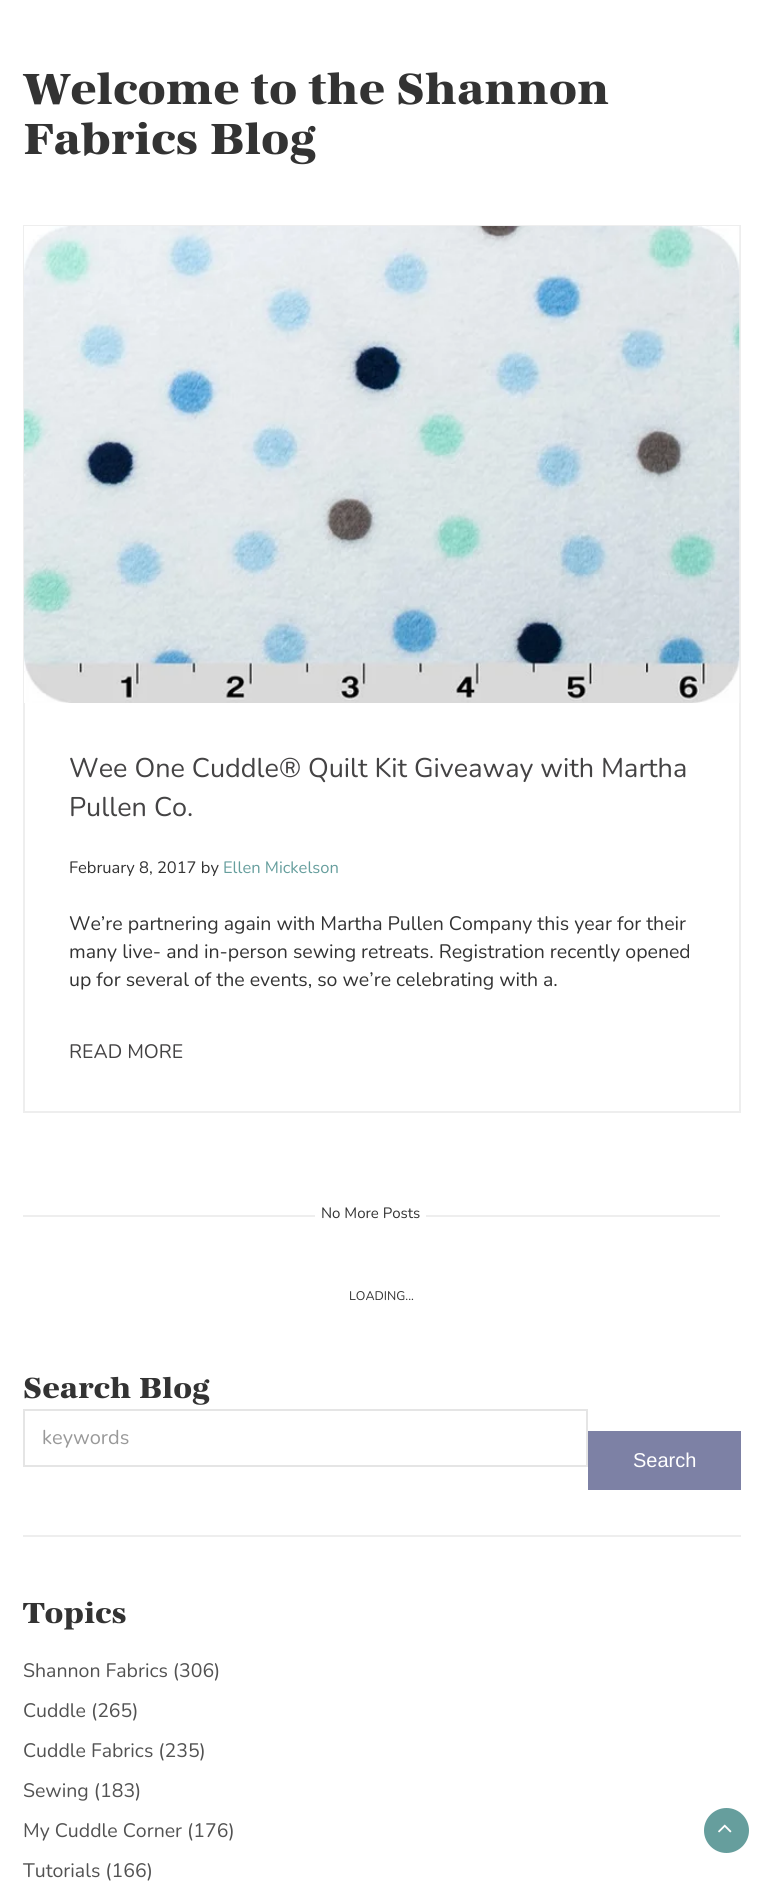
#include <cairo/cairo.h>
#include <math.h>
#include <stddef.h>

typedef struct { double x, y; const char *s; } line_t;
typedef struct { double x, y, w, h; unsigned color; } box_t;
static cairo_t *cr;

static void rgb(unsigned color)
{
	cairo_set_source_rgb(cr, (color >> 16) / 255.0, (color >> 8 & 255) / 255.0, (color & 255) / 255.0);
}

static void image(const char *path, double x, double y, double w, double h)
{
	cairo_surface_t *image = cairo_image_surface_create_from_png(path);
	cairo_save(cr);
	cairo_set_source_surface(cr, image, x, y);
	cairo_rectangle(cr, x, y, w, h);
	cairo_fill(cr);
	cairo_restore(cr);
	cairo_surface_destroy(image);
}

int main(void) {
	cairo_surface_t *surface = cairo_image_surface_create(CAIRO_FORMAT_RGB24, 763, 1889);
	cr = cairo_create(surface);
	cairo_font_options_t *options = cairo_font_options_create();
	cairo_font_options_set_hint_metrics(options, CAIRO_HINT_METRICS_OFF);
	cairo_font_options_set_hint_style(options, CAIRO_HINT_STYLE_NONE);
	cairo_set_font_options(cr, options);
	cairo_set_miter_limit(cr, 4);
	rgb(0xffffff);
	cairo_paint(cr);
	cairo_rectangle(cr, 24, 226, 716, 886);
	rgb(0xeeeeee);
	cairo_stroke(cr);
	image("img/1.png", 24, 226, 716, 477);
	{
		static const box_t items[] = {
			{23, 1215, 292, 2, 0xeeeeee},
			{426, 1215, 294, 2, 0xeeeeee},
			{23, 1535, 718, 2, 0xeeeeee},
		};
		for (size_t i = 0; i < sizeof items / sizeof *items; i++) {
			rgb(items[i].color);
			cairo_rectangle(cr, items[i].x, items[i].y, items[i].w, items[i].h);
			cairo_fill(cr);
		}
	}
	cairo_rectangle(cr, 24, 1410, 563, 56);
	rgb(0xe5e5e5);
	cairo_stroke(cr);
	rgb(0x7d81a5);
	cairo_rectangle(cr, 588, 1431, 153, 59);
	cairo_fill(cr);
	rgb(0x669e9d);
	cairo_arc(cr, 726.5, 1830.5, 22.5, 0, 2 * M_PI);
	cairo_fill(cr);
	image("img/2.png", 718, 1824, 14, 9);
	cairo_select_font_face(cr, "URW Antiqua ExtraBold", CAIRO_FONT_SLANT_NORMAL, CAIRO_FONT_WEIGHT_NORMAL);
	cairo_set_font_size(cr, 45);
	rgb(0x333333);
	cairo_move_to(cr, 23, 104);
	cairo_show_text(cr, "Welcome to the Shannon");
	cairo_move_to(cr, 23, 154);
	cairo_show_text(cr, "Fabrics Blog");
	cairo_select_font_face(cr, "Nunito", CAIRO_FONT_SLANT_NORMAL, CAIRO_FONT_WEIGHT_NORMAL);
	cairo_set_font_size(cr, 27);
	rgb(0x444344);
	cairo_move_to(cr, 69, 777);
	cairo_show_text(cr, "Wee One Cuddle® Quilt Kit Giveaway with Martha");
	cairo_move_to(cr, 69, 816);
	cairo_show_text(cr, "Pullen Co.");
	cairo_set_font_size(cr, 16.5);
	rgb(0x333333);
	cairo_move_to(cr, 69, 873);
	cairo_show_text(cr, "February 8, 2017 by");
	rgb(0x669e9d);
	cairo_move_to(cr, 223, 873);
	cairo_show_text(cr, "Ellen Mickelson");
	cairo_set_font_size(cr, 19.5);
	rgb(0x333333);
	{
		static const line_t items[] = {
			{69, 930, "We’re partnering again with Martha Pullen Company this year for their"},
			{69, 958, "many live- and in-person sewing retreats. Registration recently opened"},
			{69, 986, "up for several of the events, so we’re celebrating with a."},
		};
		for (size_t i = 0; i < sizeof items / sizeof *items; i++) {
			cairo_move_to(cr, items[i].x, items[i].y);
			cairo_show_text(cr, items[i].s);
		}
	}
	rgb(0x444344);
	cairo_move_to(cr, 69, 1058);
	cairo_show_text(cr, "READ MORE");
	cairo_set_font_size(cr, 15);
	rgb(0x333333);
	cairo_move_to(cr, 321, 1218);
	cairo_show_text(cr, "No More Posts");
	cairo_set_font_size(cr, 12.5);
	cairo_move_to(cr, 349, 1300);
	cairo_show_text(cr, "LOADING...");
	cairo_select_font_face(cr, "URW Antiqua ExtraBold", CAIRO_FONT_SLANT_NORMAL, CAIRO_FONT_WEIGHT_NORMAL);
	cairo_set_font_size(cr, 30);
	cairo_move_to(cr, 23, 1398);
	cairo_show_text(cr, "Search Blog");
	cairo_select_font_face(cr, "Nunito", CAIRO_FONT_SLANT_NORMAL, CAIRO_FONT_WEIGHT_NORMAL);
	cairo_set_font_size(cr, 20);
	rgb(0x999999);
	cairo_move_to(cr, 42, 1444);
	cairo_show_text(cr, "keywords");
	cairo_select_font_face(cr, "Liberation Sans", CAIRO_FONT_SLANT_NORMAL, CAIRO_FONT_WEIGHT_NORMAL);
	rgb(0xffffff);
	cairo_move_to(cr, 633, 1467);
	cairo_show_text(cr, "Search");
	cairo_select_font_face(cr, "URW Antiqua ExtraBold", CAIRO_FONT_SLANT_NORMAL, CAIRO_FONT_WEIGHT_NORMAL);
	cairo_set_font_size(cr, 30);
	rgb(0x333333);
	cairo_move_to(cr, 23, 1623);
	cairo_show_text(cr, "Topics");
	cairo_select_font_face(cr, "Nunito", CAIRO_FONT_SLANT_NORMAL, CAIRO_FONT_WEIGHT_NORMAL);
	cairo_set_font_size(cr, 19.5);
	rgb(0x525252);
	{
		static const line_t items[] = {
			{23, 1677, "Shannon Fabrics (306)"},
			{23, 1717, "Cuddle (265)"},
			{23, 1757, "Cuddle Fabrics (235)"},
			{23, 1797, "Sewing (183)"},
			{23, 1837, "My Cuddle Corner (176)"},
			{23, 1877, "Tutorials (166)"},
		};
		for (size_t i = 0; i < sizeof items / sizeof *items; i++) {
			cairo_move_to(cr, items[i].x, items[i].y);
			cairo_show_text(cr, items[i].s);
		}
	}
	cairo_surface_write_to_png(surface, "page.png");
	cairo_font_options_destroy(options);
	cairo_destroy(cr);
	cairo_surface_destroy(surface);
	return 0;
}
